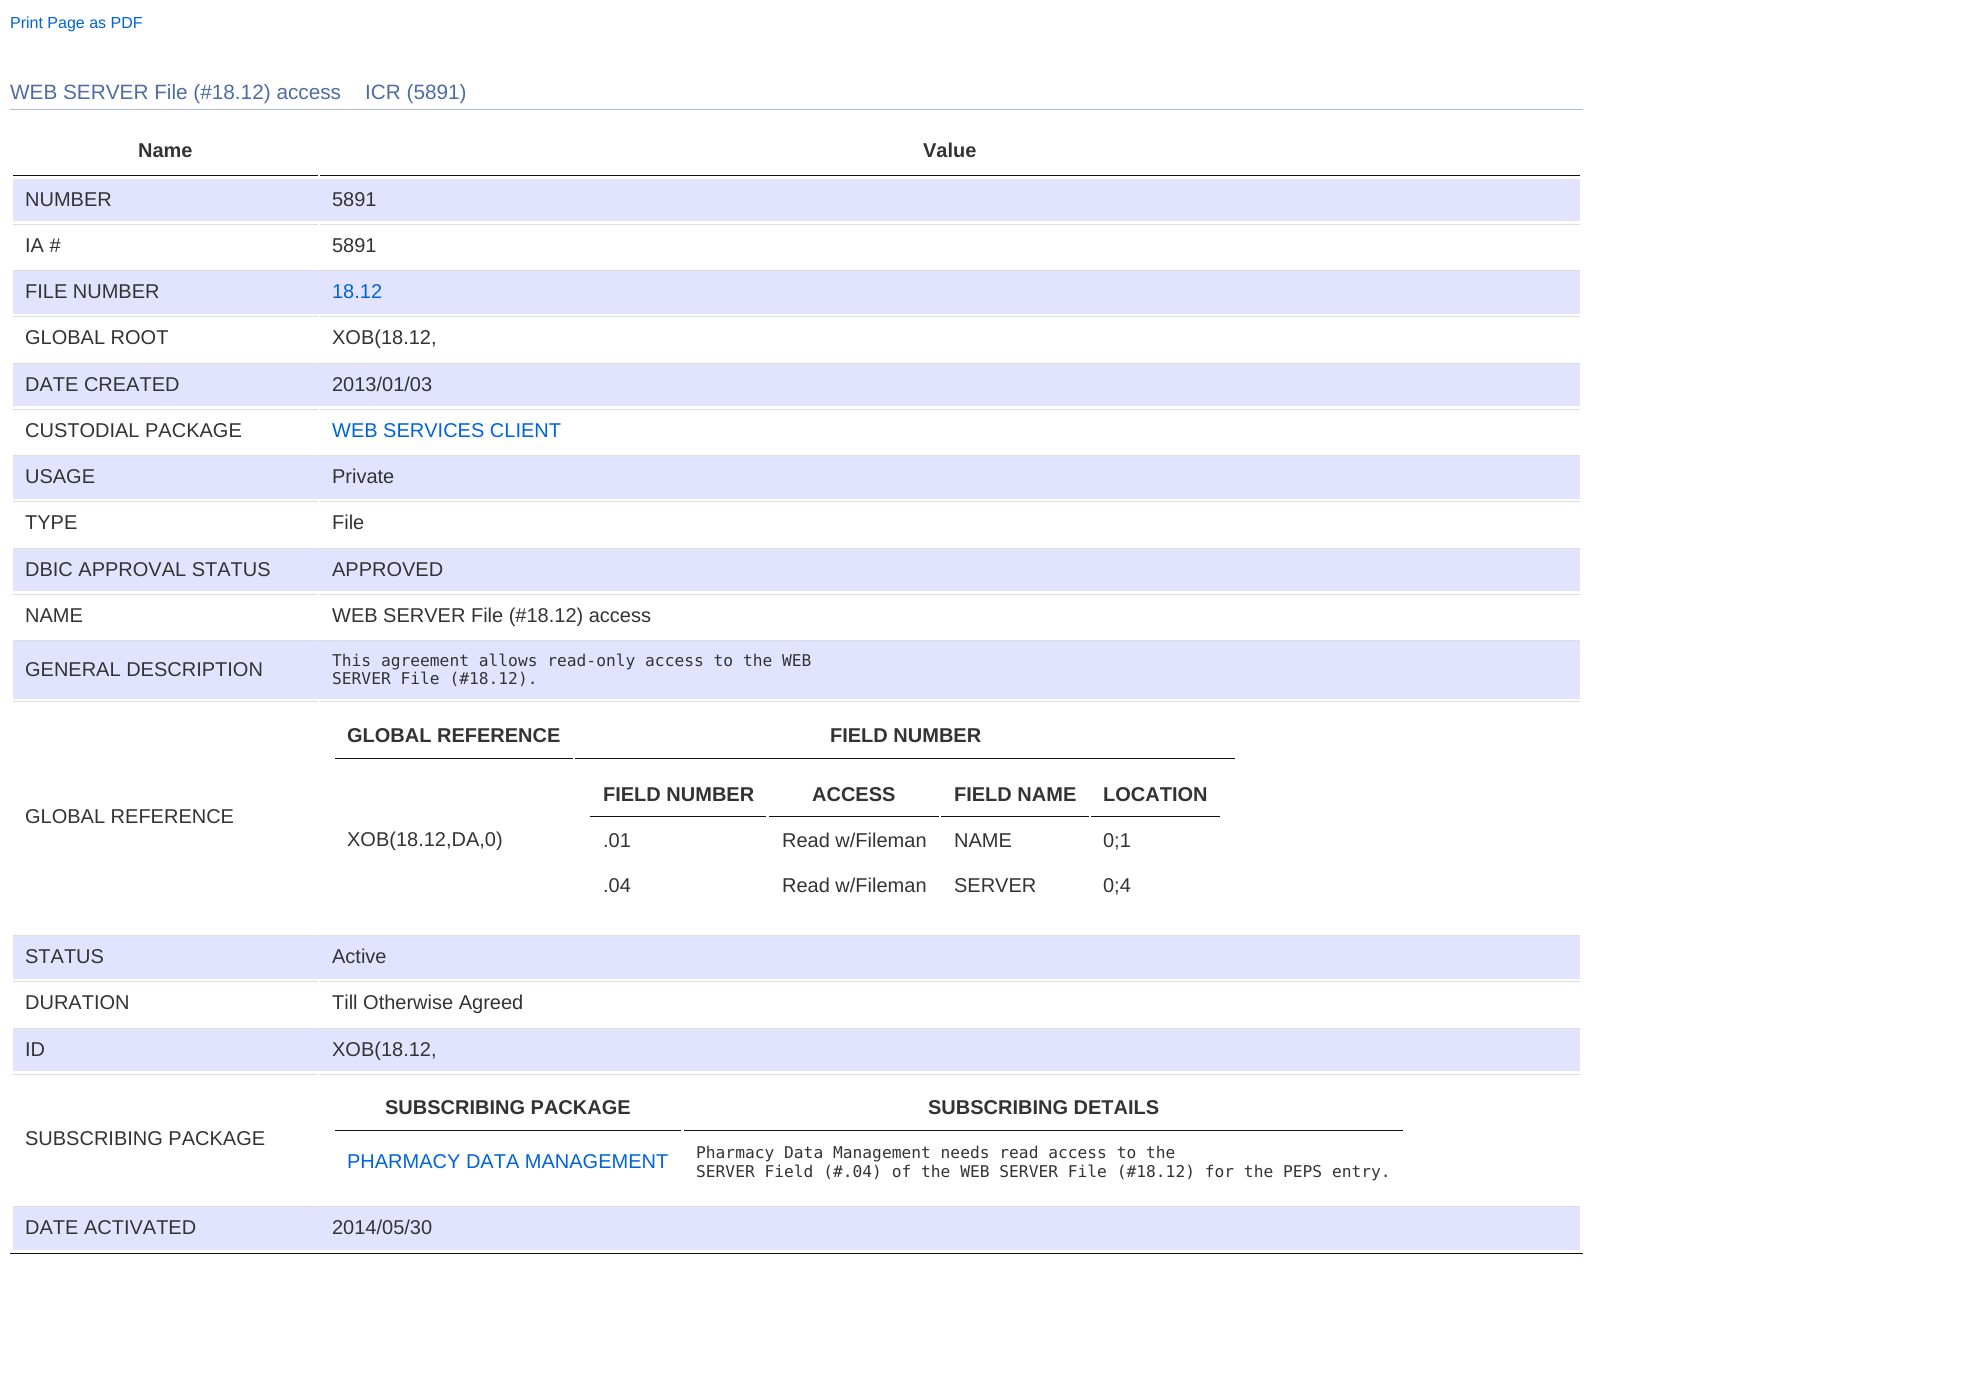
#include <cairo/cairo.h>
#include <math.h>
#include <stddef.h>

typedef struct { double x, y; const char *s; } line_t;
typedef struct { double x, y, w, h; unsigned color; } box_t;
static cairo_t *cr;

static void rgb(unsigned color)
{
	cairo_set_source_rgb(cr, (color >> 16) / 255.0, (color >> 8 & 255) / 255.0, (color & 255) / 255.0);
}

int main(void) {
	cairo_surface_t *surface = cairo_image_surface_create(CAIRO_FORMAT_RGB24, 1986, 1390);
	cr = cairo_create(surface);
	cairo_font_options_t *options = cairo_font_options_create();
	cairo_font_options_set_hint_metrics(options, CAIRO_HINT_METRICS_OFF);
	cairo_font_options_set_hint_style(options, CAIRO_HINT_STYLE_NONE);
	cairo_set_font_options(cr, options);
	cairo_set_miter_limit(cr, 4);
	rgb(0xffffff);
	cairo_paint(cr);
	{
		static const box_t items[] = {
			{10, 109, 1573, 1, 0xb0bed9},
			{10, 1253, 1573, 1, 0x111111},
			{13, 175, 305, 1, 0x111111},
			{320, 175, 1260, 1, 0x111111},
			{13, 179, 1567, 42, 0xe2e4ff},
			{13, 224, 305, 1, 0xdddddd},
			{320, 224, 1260, 1, 0xdddddd},
			{13, 270, 1567, 44, 0xe2e4ff},
			{13, 270, 305, 1, 0xdddddd},
			{320, 270, 1260, 1, 0xdddddd},
			{13, 316, 305, 1, 0xdddddd},
			{320, 316, 1260, 1, 0xdddddd},
			{13, 363, 1567, 43, 0xe2e4ff},
			{13, 363, 305, 1, 0xdddddd},
			{320, 363, 1260, 1, 0xdddddd},
			{13, 409, 305, 1, 0xdddddd},
			{320, 409, 1260, 1, 0xdddddd},
			{13, 455, 1567, 44, 0xe2e4ff},
			{13, 455, 305, 1, 0xdddddd},
			{320, 455, 1260, 1, 0xdddddd},
			{13, 501, 305, 1, 0xdddddd},
			{320, 501, 1260, 1, 0xdddddd},
			{13, 548, 1567, 43, 0xe2e4ff},
			{13, 548, 305, 1, 0xdddddd},
			{320, 548, 1260, 1, 0xdddddd},
			{13, 594, 305, 1, 0xdddddd},
			{320, 594, 1260, 1, 0xdddddd},
			{13, 640, 1567, 59, 0xe2e4ff},
			{13, 640, 305, 1, 0xdddddd},
			{320, 640, 1260, 1, 0xdddddd},
			{13, 701, 305, 1, 0xdddddd},
			{320, 701, 1260, 1, 0xdddddd},
			{335, 758, 238, 1, 0x111111},
			{575, 758, 660, 1, 0x111111},
			{590, 816, 176, 1, 0x111111},
			{769, 816, 170, 1, 0x111111},
			{941, 816, 148, 1, 0x111111},
			{1091, 816, 129, 1, 0x111111},
			{13, 935, 1567, 44, 0xe2e4ff},
			{13, 935, 305, 1, 0xdddddd},
			{320, 935, 1260, 1, 0xdddddd},
			{13, 981, 305, 1, 0xdddddd},
			{320, 981, 1260, 1, 0xdddddd},
			{13, 1028, 1567, 43, 0xe2e4ff},
			{13, 1028, 305, 1, 0xdddddd},
			{320, 1028, 1260, 1, 0xdddddd},
			{13, 1074, 305, 1, 0xdddddd},
			{320, 1074, 1260, 1, 0xdddddd},
			{335, 1130, 346, 1, 0x111111},
			{684, 1130, 719, 1, 0x111111},
			{13, 1206, 1567, 44, 0xe2e4ff},
			{13, 1206, 305, 1, 0xdddddd},
			{320, 1206, 1260, 1, 0xdddddd},
		};
		for (size_t i = 0; i < sizeof items / sizeof *items; i++) {
			rgb(items[i].color);
			cairo_rectangle(cr, items[i].x, items[i].y, items[i].w, items[i].h);
			cairo_fill(cr);
		}
	}
	cairo_select_font_face(cr, "Liberation Sans", CAIRO_FONT_SLANT_NORMAL, CAIRO_FONT_WEIGHT_NORMAL);
	cairo_set_font_size(cr, 16);
	rgb(0x0063dc);
	cairo_move_to(cr, 10, 28);
	cairo_show_text(cr, "Print Page as PDF");
	cairo_set_font_size(cr, 20.75);
	rgb(0x4e6ca3);
	cairo_move_to(cr, 10, 99);
	cairo_show_text(cr, "WEB SERVER File (#18.12) access");
	cairo_move_to(cr, 365, 99);
	cairo_show_text(cr, "ICR (5891)");
	cairo_select_font_face(cr, "Liberation Sans", CAIRO_FONT_SLANT_NORMAL, CAIRO_FONT_WEIGHT_BOLD);
	cairo_set_font_size(cr, 20);
	rgb(0x333333);
	cairo_move_to(cr, 138, 157);
	cairo_show_text(cr, "Name");
	cairo_move_to(cr, 923, 157);
	cairo_show_text(cr, "Value");
	cairo_select_font_face(cr, "Liberation Sans", CAIRO_FONT_SLANT_NORMAL, CAIRO_FONT_WEIGHT_NORMAL);
	{
		static const line_t items[] = {
			{25, 206, "NUMBER"},
			{332, 206, "5891"},
			{25, 252, "IA #"},
			{332, 252, "5891"},
			{25, 298, "FILE NUMBER"},
		};
		for (size_t i = 0; i < sizeof items / sizeof *items; i++) {
			cairo_move_to(cr, items[i].x, items[i].y);
			cairo_show_text(cr, items[i].s);
		}
	}
	rgb(0x0063dc);
	cairo_move_to(cr, 332, 298);
	cairo_show_text(cr, "18.12");
	rgb(0x333333);
	{
		static const line_t items[] = {
			{25, 344, "GLOBAL ROOT"},
			{332, 344, "XOB(18.12,"},
			{25, 391, "DATE CREATED"},
			{332, 391, "2013/01/03"},
			{25, 437, "CUSTODIAL PACKAGE"},
		};
		for (size_t i = 0; i < sizeof items / sizeof *items; i++) {
			cairo_move_to(cr, items[i].x, items[i].y);
			cairo_show_text(cr, items[i].s);
		}
	}
	rgb(0x0063dc);
	cairo_move_to(cr, 332, 437);
	cairo_show_text(cr, "WEB SERVICES CLIENT");
	rgb(0x333333);
	{
		static const line_t items[] = {
			{25, 483, "USAGE"},
			{332, 483, "Private"},
			{25, 529, "TYPE"},
			{332, 529, "File"},
			{25, 576, "DBIC APPROVAL STATUS"},
			{332, 576, "APPROVED"},
			{25, 622, "NAME"},
			{332, 622, "WEB SERVER File (#18.12) access"},
			{25, 676, "GENERAL DESCRIPTION"},
		};
		for (size_t i = 0; i < sizeof items / sizeof *items; i++) {
			cairo_move_to(cr, items[i].x, items[i].y);
			cairo_show_text(cr, items[i].s);
		}
	}
	cairo_select_font_face(cr, "DejaVu Sans Mono", CAIRO_FONT_SLANT_NORMAL, CAIRO_FONT_WEIGHT_NORMAL);
	cairo_set_font_size(cr, 16.25);
	cairo_move_to(cr, 332, 666);
	cairo_show_text(cr, "This agreement allows read-only access to the WEB");
	cairo_move_to(cr, 332, 684);
	cairo_show_text(cr, "SERVER File (#18.12).");
	cairo_select_font_face(cr, "Liberation Sans", CAIRO_FONT_SLANT_NORMAL, CAIRO_FONT_WEIGHT_NORMAL);
	cairo_set_font_size(cr, 20);
	cairo_move_to(cr, 25, 823);
	cairo_show_text(cr, "GLOBAL REFERENCE");
	cairo_select_font_face(cr, "Liberation Sans", CAIRO_FONT_SLANT_NORMAL, CAIRO_FONT_WEIGHT_BOLD);
	cairo_move_to(cr, 347, 742);
	cairo_show_text(cr, "GLOBAL REFERENCE");
	cairo_move_to(cr, 830, 742);
	cairo_show_text(cr, "FIELD NUMBER");
	cairo_select_font_face(cr, "Liberation Sans", CAIRO_FONT_SLANT_NORMAL, CAIRO_FONT_WEIGHT_NORMAL);
	cairo_move_to(cr, 347, 846);
	cairo_show_text(cr, "XOB(18.12,DA,0)");
	cairo_select_font_face(cr, "Liberation Sans", CAIRO_FONT_SLANT_NORMAL, CAIRO_FONT_WEIGHT_BOLD);
	{
		static const line_t items[] = {
			{603, 801, "FIELD NUMBER"},
			{812, 801, "ACCESS"},
			{954, 801, "FIELD NAME"},
			{1103, 801, "LOCATION"},
		};
		for (size_t i = 0; i < sizeof items / sizeof *items; i++) {
			cairo_move_to(cr, items[i].x, items[i].y);
			cairo_show_text(cr, items[i].s);
		}
	}
	cairo_select_font_face(cr, "Liberation Sans", CAIRO_FONT_SLANT_NORMAL, CAIRO_FONT_WEIGHT_NORMAL);
	{
		static const line_t items[] = {
			{603, 847, ".01"},
			{782, 847, "Read w/Fileman"},
			{954, 847, "NAME"},
			{1103, 847, "0;1"},
			{603, 892, ".04"},
			{782, 892, "Read w/Fileman"},
			{954, 892, "SERVER"},
			{1103, 892, "0;4"},
			{25, 963, "STATUS"},
			{332, 963, "Active"},
			{25, 1009, "DURATION"},
			{332, 1009, "Till Otherwise Agreed"},
			{25, 1056, "ID"},
			{332, 1056, "XOB(18.12,"},
			{25, 1145, "SUBSCRIBING PACKAGE"},
		};
		for (size_t i = 0; i < sizeof items / sizeof *items; i++) {
			cairo_move_to(cr, items[i].x, items[i].y);
			cairo_show_text(cr, items[i].s);
		}
	}
	cairo_select_font_face(cr, "Liberation Sans", CAIRO_FONT_SLANT_NORMAL, CAIRO_FONT_WEIGHT_BOLD);
	cairo_move_to(cr, 385, 1114);
	cairo_show_text(cr, "SUBSCRIBING PACKAGE");
	cairo_move_to(cr, 928, 1114);
	cairo_show_text(cr, "SUBSCRIBING DETAILS");
	cairo_select_font_face(cr, "Liberation Sans", CAIRO_FONT_SLANT_NORMAL, CAIRO_FONT_WEIGHT_NORMAL);
	rgb(0x0063dc);
	cairo_move_to(cr, 347, 1168);
	cairo_show_text(cr, "PHARMACY DATA MANAGEMENT");
	cairo_select_font_face(cr, "DejaVu Sans Mono", CAIRO_FONT_SLANT_NORMAL, CAIRO_FONT_WEIGHT_NORMAL);
	cairo_set_font_size(cr, 16.25);
	rgb(0x333333);
	cairo_move_to(cr, 696, 1158);
	cairo_show_text(cr, "Pharmacy Data Management needs read access to the");
	cairo_move_to(cr, 696, 1177);
	cairo_show_text(cr, "SERVER Field (#.04) of the WEB SERVER File (#18.12) for the PEPS entry.");
	cairo_select_font_face(cr, "Liberation Sans", CAIRO_FONT_SLANT_NORMAL, CAIRO_FONT_WEIGHT_NORMAL);
	cairo_set_font_size(cr, 20);
	cairo_move_to(cr, 25, 1234);
	cairo_show_text(cr, "DATE ACTIVATED");
	cairo_move_to(cr, 332, 1234);
	cairo_show_text(cr, "2014/05/30");
	cairo_surface_write_to_png(surface, "page.png");
	cairo_font_options_destroy(options);
	cairo_destroy(cr);
	cairo_surface_destroy(surface);
	return 0;
}
